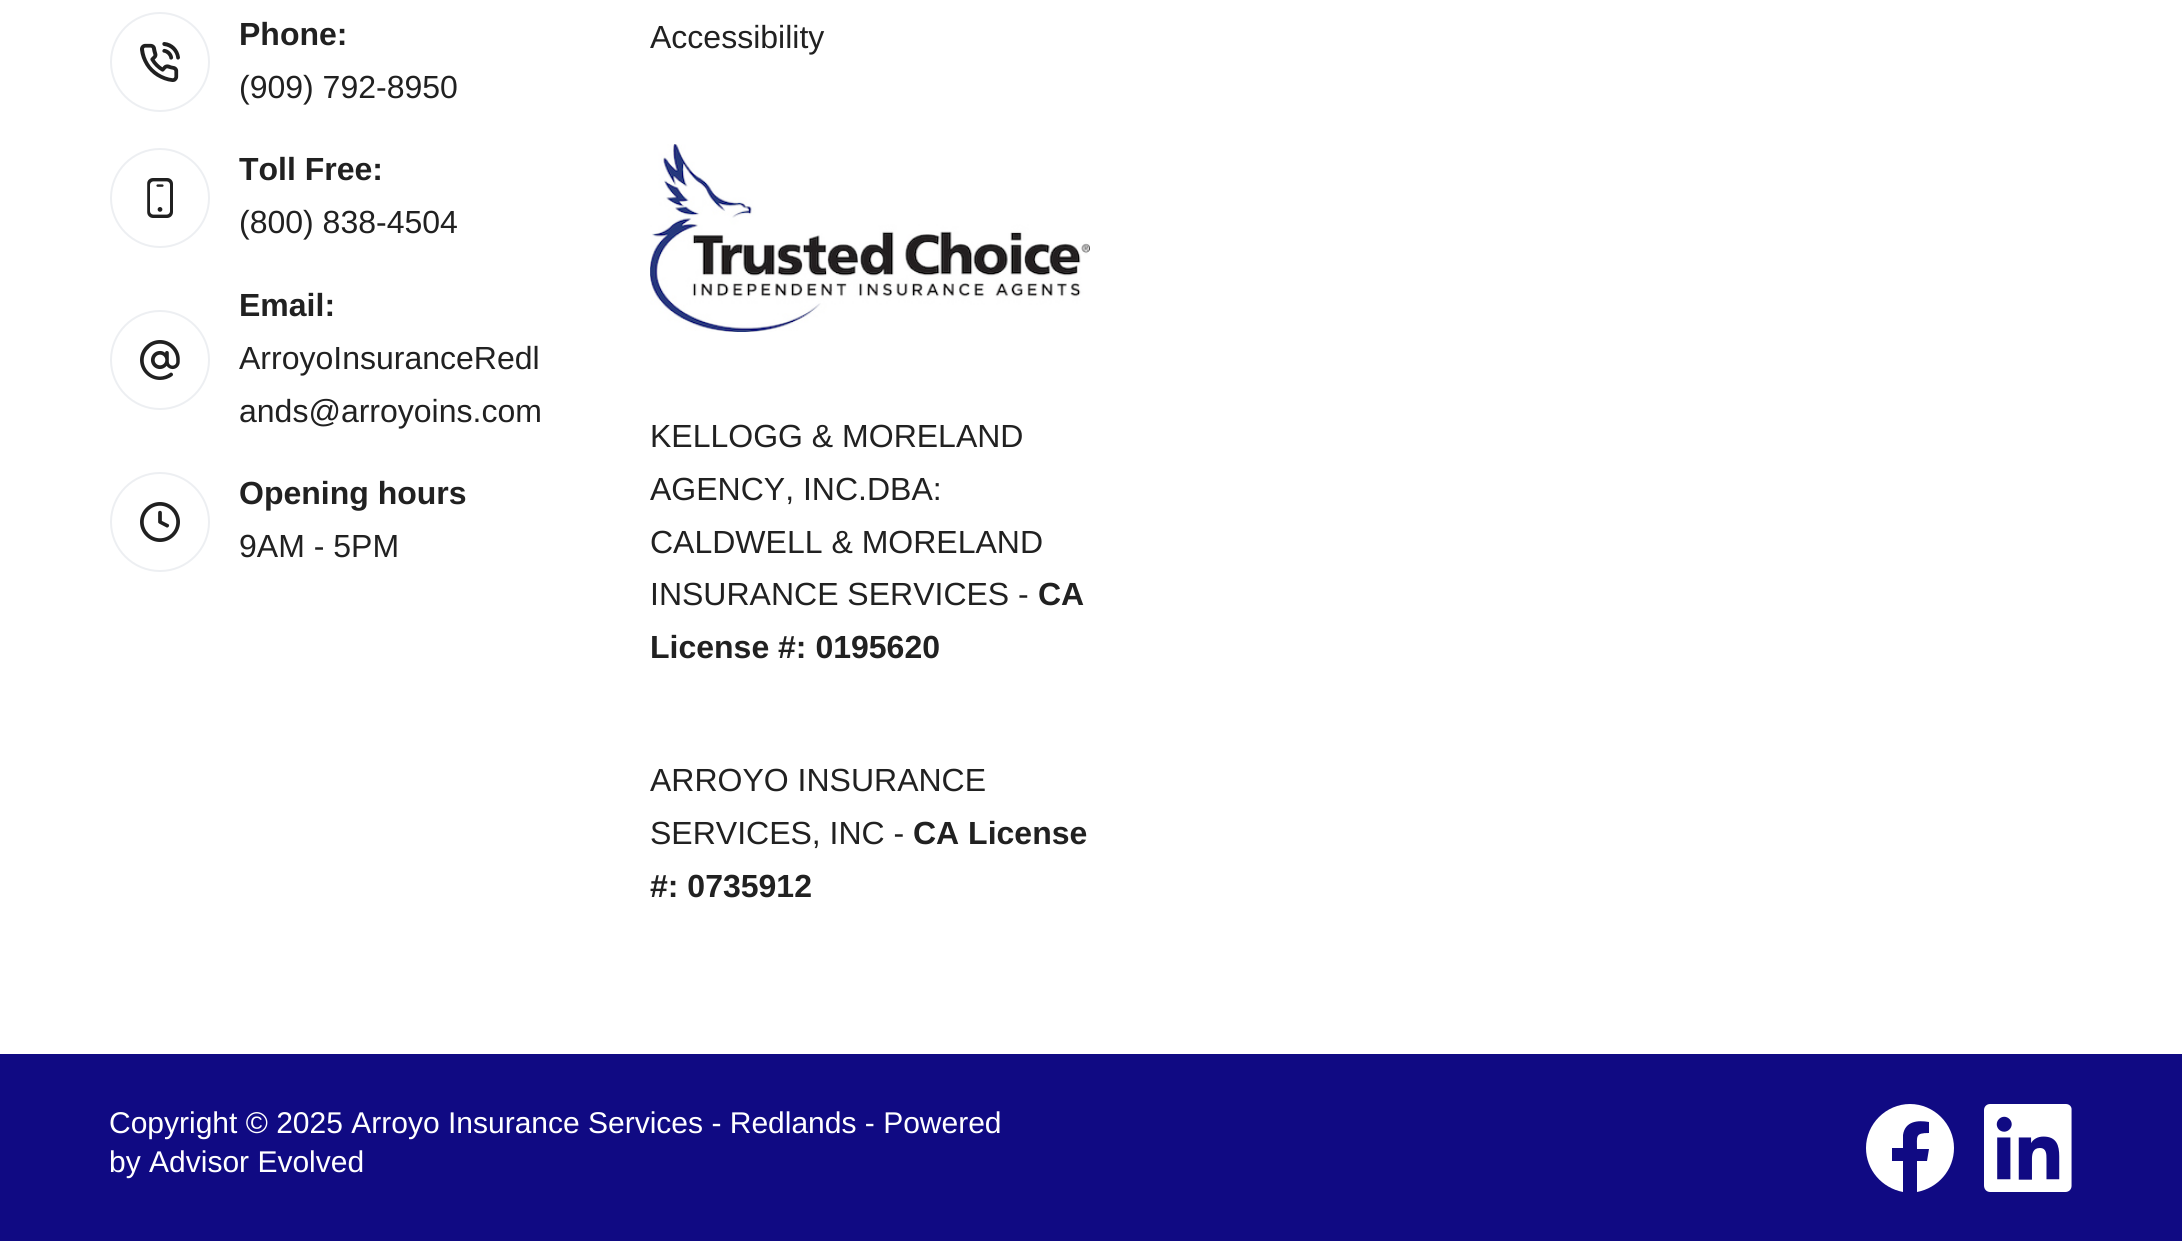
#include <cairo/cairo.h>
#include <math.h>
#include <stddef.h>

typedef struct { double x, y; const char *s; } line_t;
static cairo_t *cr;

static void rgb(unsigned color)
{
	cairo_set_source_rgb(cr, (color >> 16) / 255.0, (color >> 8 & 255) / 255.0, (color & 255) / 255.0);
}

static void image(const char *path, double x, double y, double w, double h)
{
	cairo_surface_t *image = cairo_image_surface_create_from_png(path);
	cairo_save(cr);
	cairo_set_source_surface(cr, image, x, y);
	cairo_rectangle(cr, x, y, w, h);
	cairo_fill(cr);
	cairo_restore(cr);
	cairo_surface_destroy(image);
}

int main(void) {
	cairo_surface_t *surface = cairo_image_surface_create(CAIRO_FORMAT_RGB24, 2182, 1241);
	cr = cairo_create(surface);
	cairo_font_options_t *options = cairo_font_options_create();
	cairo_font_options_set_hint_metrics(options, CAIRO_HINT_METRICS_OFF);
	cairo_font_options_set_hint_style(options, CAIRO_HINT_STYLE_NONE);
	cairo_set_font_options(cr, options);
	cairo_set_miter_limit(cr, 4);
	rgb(0xffffff);
	cairo_paint(cr);
	cairo_arc(cr, 160, 62, 49, 0, 2 * M_PI);
	rgb(0xedeff2);
	cairo_stroke(cr);
	image("img/1.png", 140, 42, 40, 40);
	cairo_arc(cr, 160, 198, 49, 0, 2 * M_PI);
	cairo_stroke(cr);
	image("img/2.png", 147, 178, 26, 40);
	cairo_arc(cr, 160, 360, 49, 0, 2 * M_PI);
	cairo_stroke(cr);
	image("img/3.png", 140, 340, 40, 40);
	cairo_arc(cr, 160, 522, 49, 0, 2 * M_PI);
	cairo_stroke(cr);
	image("img/4.png", 140, 502, 40, 40);
	image("img/5.png", 650, 144, 440, 188);
	rgb(0x100a83);
	cairo_rectangle(cr, 0, 1054, 2182, 187);
	cairo_fill(cr);
	rgb(0xffffff);
	cairo_new_path(cr);
	cairo_move_to(cr, 1954, 1148);
	cairo_curve_to(cr, 1954, 1124, 1934, 1104, 1910, 1104);
	cairo_curve_to(cr, 1886, 1104, 1866, 1124, 1866, 1148);
	cairo_curve_to(cr, 1866, 1170, 1882, 1188, 1903, 1192);
	cairo_line_to(cr, 1903, 1161);
	cairo_line_to(cr, 1892, 1161);
	cairo_line_to(cr, 1892, 1148);
	cairo_line_to(cr, 1903, 1148);
	cairo_line_to(cr, 1903, 1135);
	cairo_curve_to(cr, 1905, 1121, 1918, 1120, 1929, 1122);
	cairo_line_to(cr, 1929, 1133);
	cairo_curve_to(cr, 1915, 1133, 1917, 1136, 1917, 1149);
	cairo_line_to(cr, 1929, 1149);
	cairo_line_to(cr, 1927, 1161);
	cairo_line_to(cr, 1917, 1161);
	cairo_line_to(cr, 1917, 1192);
	cairo_curve_to(cr, 1938, 1188, 1954, 1170, 1954, 1148);
	cairo_close_path(cr);
	cairo_fill(cr);
	image("img/6.png", 1984, 1104, 88, 88);
	cairo_select_font_face(cr, "Liberation Sans", CAIRO_FONT_SLANT_NORMAL, CAIRO_FONT_WEIGHT_BOLD);
	cairo_set_font_size(cr, 32);
	rgb(0x212121);
	cairo_move_to(cr, 239, 45);
	cairo_show_text(cr, "Phone:");
	cairo_select_font_face(cr, "Liberation Sans", CAIRO_FONT_SLANT_NORMAL, CAIRO_FONT_WEIGHT_NORMAL);
	cairo_move_to(cr, 239, 98);
	cairo_show_text(cr, "(909) 792-8950");
	cairo_select_font_face(cr, "Liberation Sans", CAIRO_FONT_SLANT_NORMAL, CAIRO_FONT_WEIGHT_BOLD);
	cairo_move_to(cr, 239, 180);
	cairo_show_text(cr, "Toll Free:");
	cairo_select_font_face(cr, "Liberation Sans", CAIRO_FONT_SLANT_NORMAL, CAIRO_FONT_WEIGHT_NORMAL);
	cairo_move_to(cr, 239, 233);
	cairo_show_text(cr, "(800) 838-4504");
	cairo_select_font_face(cr, "Liberation Sans", CAIRO_FONT_SLANT_NORMAL, CAIRO_FONT_WEIGHT_BOLD);
	cairo_move_to(cr, 239, 316);
	cairo_show_text(cr, "Email:");
	cairo_select_font_face(cr, "Liberation Sans", CAIRO_FONT_SLANT_NORMAL, CAIRO_FONT_WEIGHT_NORMAL);
	cairo_move_to(cr, 239, 369);
	cairo_show_text(cr, "ArroyoInsuranceRedl");
	cairo_move_to(cr, 239, 422);
	cairo_show_text(cr, "ands@arroyoins.com");
	cairo_select_font_face(cr, "Liberation Sans", CAIRO_FONT_SLANT_NORMAL, CAIRO_FONT_WEIGHT_BOLD);
	cairo_move_to(cr, 239, 504);
	cairo_show_text(cr, "Opening hours");
	cairo_select_font_face(cr, "Liberation Sans", CAIRO_FONT_SLANT_NORMAL, CAIRO_FONT_WEIGHT_NORMAL);
	{
		static const line_t items[] = {
			{239, 557, "9AM - 5PM"},
			{650, 48, "Accessibility"},
			{650, 447, "KELLOGG & MORELAND"},
			{650, 500, "AGENCY, INC.DBA:"},
			{650, 553, "CALDWELL & MORELAND"},
			{650, 605, "INSURANCE SERVICES -"},
		};
		for (size_t i = 0; i < sizeof items / sizeof *items; i++) {
			cairo_move_to(cr, items[i].x, items[i].y);
			cairo_show_text(cr, items[i].s);
		}
	}
	cairo_select_font_face(cr, "Liberation Sans", CAIRO_FONT_SLANT_NORMAL, CAIRO_FONT_WEIGHT_BOLD);
	cairo_move_to(cr, 1038, 605);
	cairo_show_text(cr, "CA");
	cairo_move_to(cr, 650, 658);
	cairo_show_text(cr, "License #: 0195620");
	cairo_select_font_face(cr, "Liberation Sans", CAIRO_FONT_SLANT_NORMAL, CAIRO_FONT_WEIGHT_NORMAL);
	cairo_move_to(cr, 650, 791);
	cairo_show_text(cr, "ARROYO INSURANCE");
	cairo_move_to(cr, 650, 844);
	cairo_show_text(cr, "SERVICES, INC -");
	cairo_select_font_face(cr, "Liberation Sans", CAIRO_FONT_SLANT_NORMAL, CAIRO_FONT_WEIGHT_BOLD);
	cairo_move_to(cr, 913, 844);
	cairo_show_text(cr, "CA License");
	cairo_move_to(cr, 650, 897);
	cairo_show_text(cr, "#: 0735912");
	cairo_select_font_face(cr, "Liberation Sans", CAIRO_FONT_SLANT_NORMAL, CAIRO_FONT_WEIGHT_NORMAL);
	cairo_set_font_size(cr, 30);
	rgb(0xffffff);
	cairo_move_to(cr, 109, 1133);
	cairo_show_text(cr, "Copyright © 2025 Arroyo Insurance Services - Redlands - Powered");
	cairo_move_to(cr, 109, 1172);
	cairo_show_text(cr, "by Advisor Evolved");
	cairo_surface_write_to_png(surface, "page.png");
	cairo_font_options_destroy(options);
	cairo_destroy(cr);
	cairo_surface_destroy(surface);
	return 0;
}
